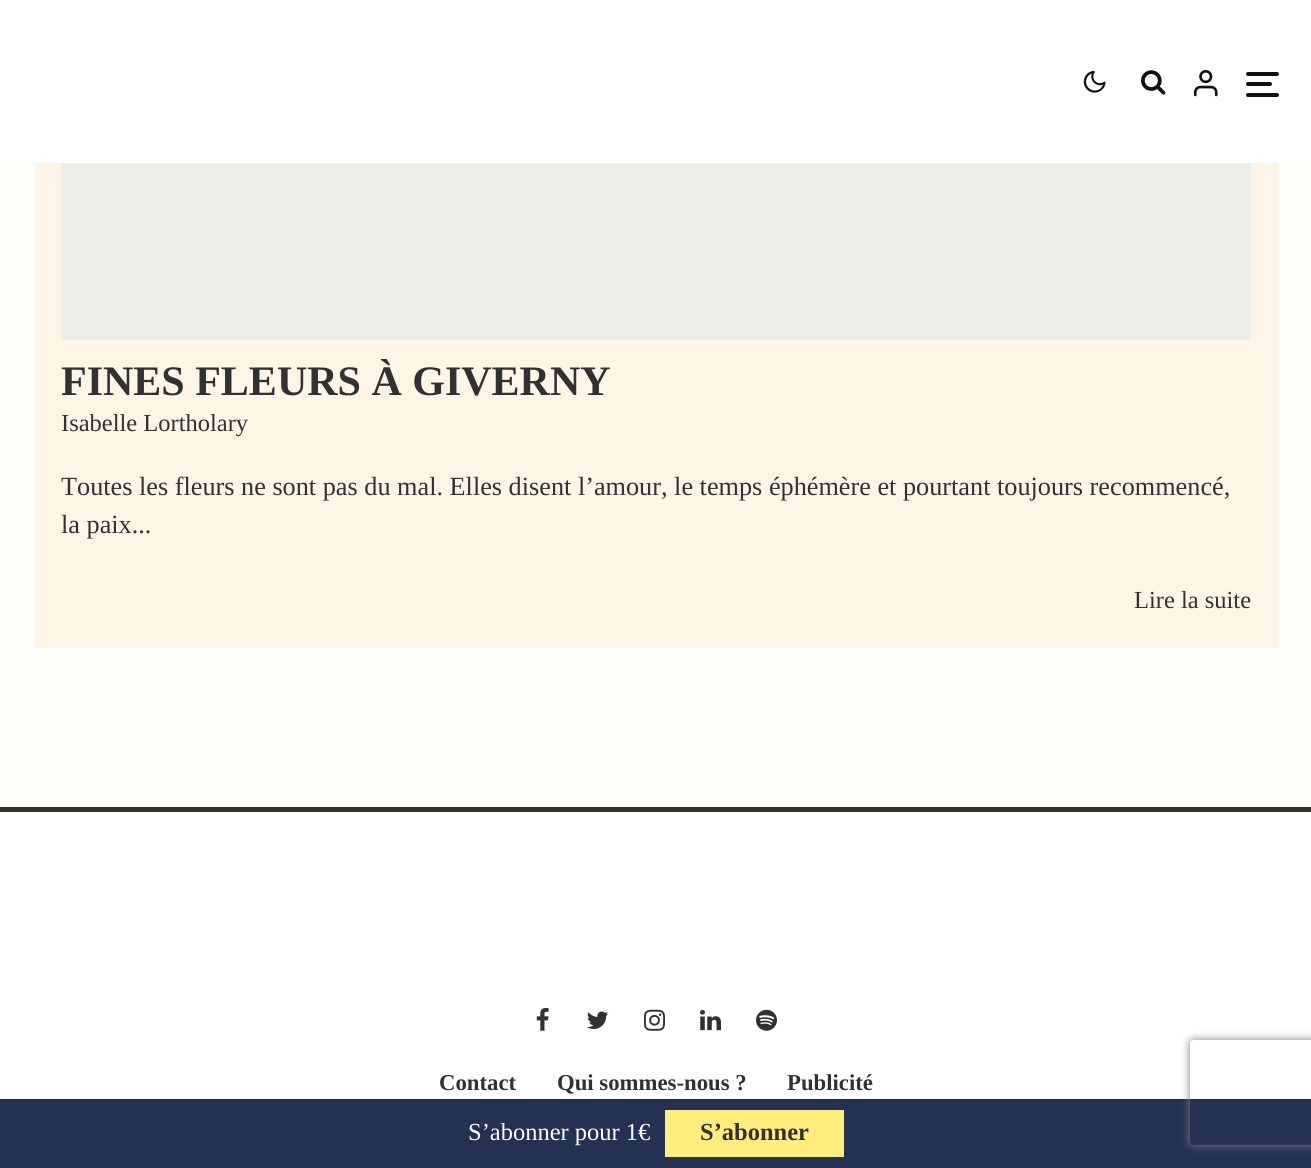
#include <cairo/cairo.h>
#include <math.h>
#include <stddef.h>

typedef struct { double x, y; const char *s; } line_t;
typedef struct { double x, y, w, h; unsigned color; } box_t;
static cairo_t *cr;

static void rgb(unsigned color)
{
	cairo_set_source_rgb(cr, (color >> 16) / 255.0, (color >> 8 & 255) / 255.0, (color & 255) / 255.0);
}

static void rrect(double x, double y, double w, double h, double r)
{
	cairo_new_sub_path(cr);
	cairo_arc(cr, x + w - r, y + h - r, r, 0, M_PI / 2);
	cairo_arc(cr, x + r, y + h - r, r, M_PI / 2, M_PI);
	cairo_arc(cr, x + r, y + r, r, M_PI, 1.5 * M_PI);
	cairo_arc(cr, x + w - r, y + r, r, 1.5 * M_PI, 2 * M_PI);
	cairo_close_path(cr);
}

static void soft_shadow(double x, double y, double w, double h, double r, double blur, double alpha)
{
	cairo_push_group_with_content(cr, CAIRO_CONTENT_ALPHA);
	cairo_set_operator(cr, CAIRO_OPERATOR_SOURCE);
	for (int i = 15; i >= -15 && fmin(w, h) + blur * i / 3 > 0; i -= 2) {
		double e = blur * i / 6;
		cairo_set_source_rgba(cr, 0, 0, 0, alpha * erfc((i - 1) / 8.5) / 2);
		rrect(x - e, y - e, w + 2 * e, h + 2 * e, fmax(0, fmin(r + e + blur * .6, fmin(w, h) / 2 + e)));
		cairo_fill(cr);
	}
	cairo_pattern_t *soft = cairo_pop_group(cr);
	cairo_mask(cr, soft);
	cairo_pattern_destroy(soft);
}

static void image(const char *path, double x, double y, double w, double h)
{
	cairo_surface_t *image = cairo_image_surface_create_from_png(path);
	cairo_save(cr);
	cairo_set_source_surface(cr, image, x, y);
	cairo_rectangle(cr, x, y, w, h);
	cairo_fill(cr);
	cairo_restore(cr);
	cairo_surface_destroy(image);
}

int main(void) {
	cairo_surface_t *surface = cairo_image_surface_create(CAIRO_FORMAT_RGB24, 1311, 1168);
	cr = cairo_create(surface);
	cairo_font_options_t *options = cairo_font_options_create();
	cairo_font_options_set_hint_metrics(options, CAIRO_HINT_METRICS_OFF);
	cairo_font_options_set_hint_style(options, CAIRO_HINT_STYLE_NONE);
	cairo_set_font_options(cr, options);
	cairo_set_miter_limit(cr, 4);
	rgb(0xfffdfa);
	cairo_paint(cr);
	rgb(0xffffff);
	cairo_rectangle(cr, 0, 0, 1311, 163);
	cairo_fill(cr);
	image("img/1.png", 1083, 70, 23, 23);
	image("img/2.png", 1141, 70, 25, 25);
	image("img/3.png", 1193, 70, 25, 27);
	rgb(0x111111);
	rrect(1246, 82, 26, 4, 2);
	cairo_fill(cr);
	rrect(1246, 72, 33, 4, 2);
	cairo_fill(cr);
	rrect(1246, 93, 33, 4, 2);
	cairo_fill(cr);
	{
		static const box_t items[] = {
			{35, 163, 1243, 485, 0xfff5e7},
			{61, 163, 1190, 177, 0xeeece9},
			{0, 807, 1311, 5, 0x313130},
			{0, 812, 1311, 287, 0xffffff},
		};
		for (size_t i = 0; i < sizeof items / sizeof *items; i++) {
			rgb(items[i].color);
			cairo_rectangle(cr, items[i].x, items[i].y, items[i].w, items[i].h);
			cairo_fill(cr);
		}
	}
	image("img/4.png", 536, 1008, 13, 23);
	image("img/5.png", 587, 1011, 22, 18);
	image("img/6.png", 644, 1009, 21, 22);
	image("img/7.png", 700, 1010, 21, 21);
	image("img/8.png", 756, 1009, 21, 22);
	rgb(0x253153);
	cairo_rectangle(cr, 0, 1099, 1311, 69);
	cairo_fill(cr);
	rgb(0xffee7d);
	cairo_rectangle(cr, 665, 1110, 179, 47);
	cairo_fill(cr);
	cairo_save(cr);
	cairo_set_fill_rule(cr, CAIRO_FILL_RULE_EVEN_ODD);
	cairo_new_path(cr);
	cairo_move_to(cr, 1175, 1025);
	cairo_line_to(cr, 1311, 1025);
	cairo_line_to(cr, 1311, 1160);
	cairo_line_to(cr, 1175, 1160);
	cairo_close_path(cr);
	cairo_move_to(cr, 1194, 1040);
	cairo_line_to(cr, 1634, 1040);
	cairo_curve_to(cr, 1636, 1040, 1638, 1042, 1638, 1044);
	cairo_line_to(cr, 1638, 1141);
	cairo_curve_to(cr, 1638, 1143, 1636, 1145, 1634, 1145);
	cairo_line_to(cr, 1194, 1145);
	cairo_curve_to(cr, 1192, 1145, 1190, 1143, 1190, 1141);
	cairo_line_to(cr, 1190, 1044);
	cairo_curve_to(cr, 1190, 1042, 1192, 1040, 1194, 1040);
	cairo_close_path(cr);
	cairo_clip(cr);
	rgb(0x808080);
	soft_shadow(1190, 1040, 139, 105, 4, 4.5, 1);
	cairo_restore(cr);
	cairo_select_font_face(cr, "Liberation Serif", CAIRO_FONT_SLANT_NORMAL, CAIRO_FONT_WEIGHT_BOLD);
	cairo_set_font_size(cr, 42);
	rgb(0x313130);
	cairo_move_to(cr, 61, 395);
	cairo_show_text(cr, "FINES FLEURS À GIVERNY");
	cairo_select_font_face(cr, "Liberation Serif", CAIRO_FONT_SLANT_NORMAL, CAIRO_FONT_WEIGHT_NORMAL);
	cairo_set_font_size(cr, 24.5);
	cairo_move_to(cr, 61, 431);
	cairo_show_text(cr, "Isabelle Lortholary");
	cairo_set_font_size(cr, 26.25);
	cairo_move_to(cr, 61, 495);
	cairo_show_text(cr, "Toutes les fleurs ne sont pas du mal. Elles disent l’amour, le temps éphémère et pourtant toujours recommencé,");
	cairo_move_to(cr, 61, 533);
	cairo_show_text(cr, "la paix...");
	cairo_set_font_size(cr, 24.5);
	cairo_move_to(cr, 1134, 608);
	cairo_show_text(cr, "Lire la suite");
	cairo_select_font_face(cr, "Liberation Serif", CAIRO_FONT_SLANT_NORMAL, CAIRO_FONT_WEIGHT_BOLD);
	cairo_set_font_size(cr, 22.75);
	{
		static const line_t items[] = {
			{439, 1090, "Contact"},
			{557, 1090, "Qui sommes-nous ?"},
			{787, 1090, "Publicité"},
		};
		for (size_t i = 0; i < sizeof items / sizeof *items; i++) {
			cairo_move_to(cr, items[i].x, items[i].y);
			cairo_show_text(cr, items[i].s);
		}
	}
	cairo_select_font_face(cr, "Liberation Serif", CAIRO_FONT_SLANT_NORMAL, CAIRO_FONT_WEIGHT_NORMAL);
	cairo_set_font_size(cr, 24.5);
	rgb(0xffffff);
	cairo_move_to(cr, 468, 1140);
	cairo_show_text(cr, "S’abonner pour 1€");
	cairo_select_font_face(cr, "Liberation Serif", CAIRO_FONT_SLANT_NORMAL, CAIRO_FONT_WEIGHT_BOLD);
	rgb(0x313130);
	cairo_move_to(cr, 700, 1140);
	cairo_show_text(cr, "S’abonner");
	cairo_surface_write_to_png(surface, "page.png");
	cairo_font_options_destroy(options);
	cairo_destroy(cr);
	cairo_surface_destroy(surface);
	return 0;
}
